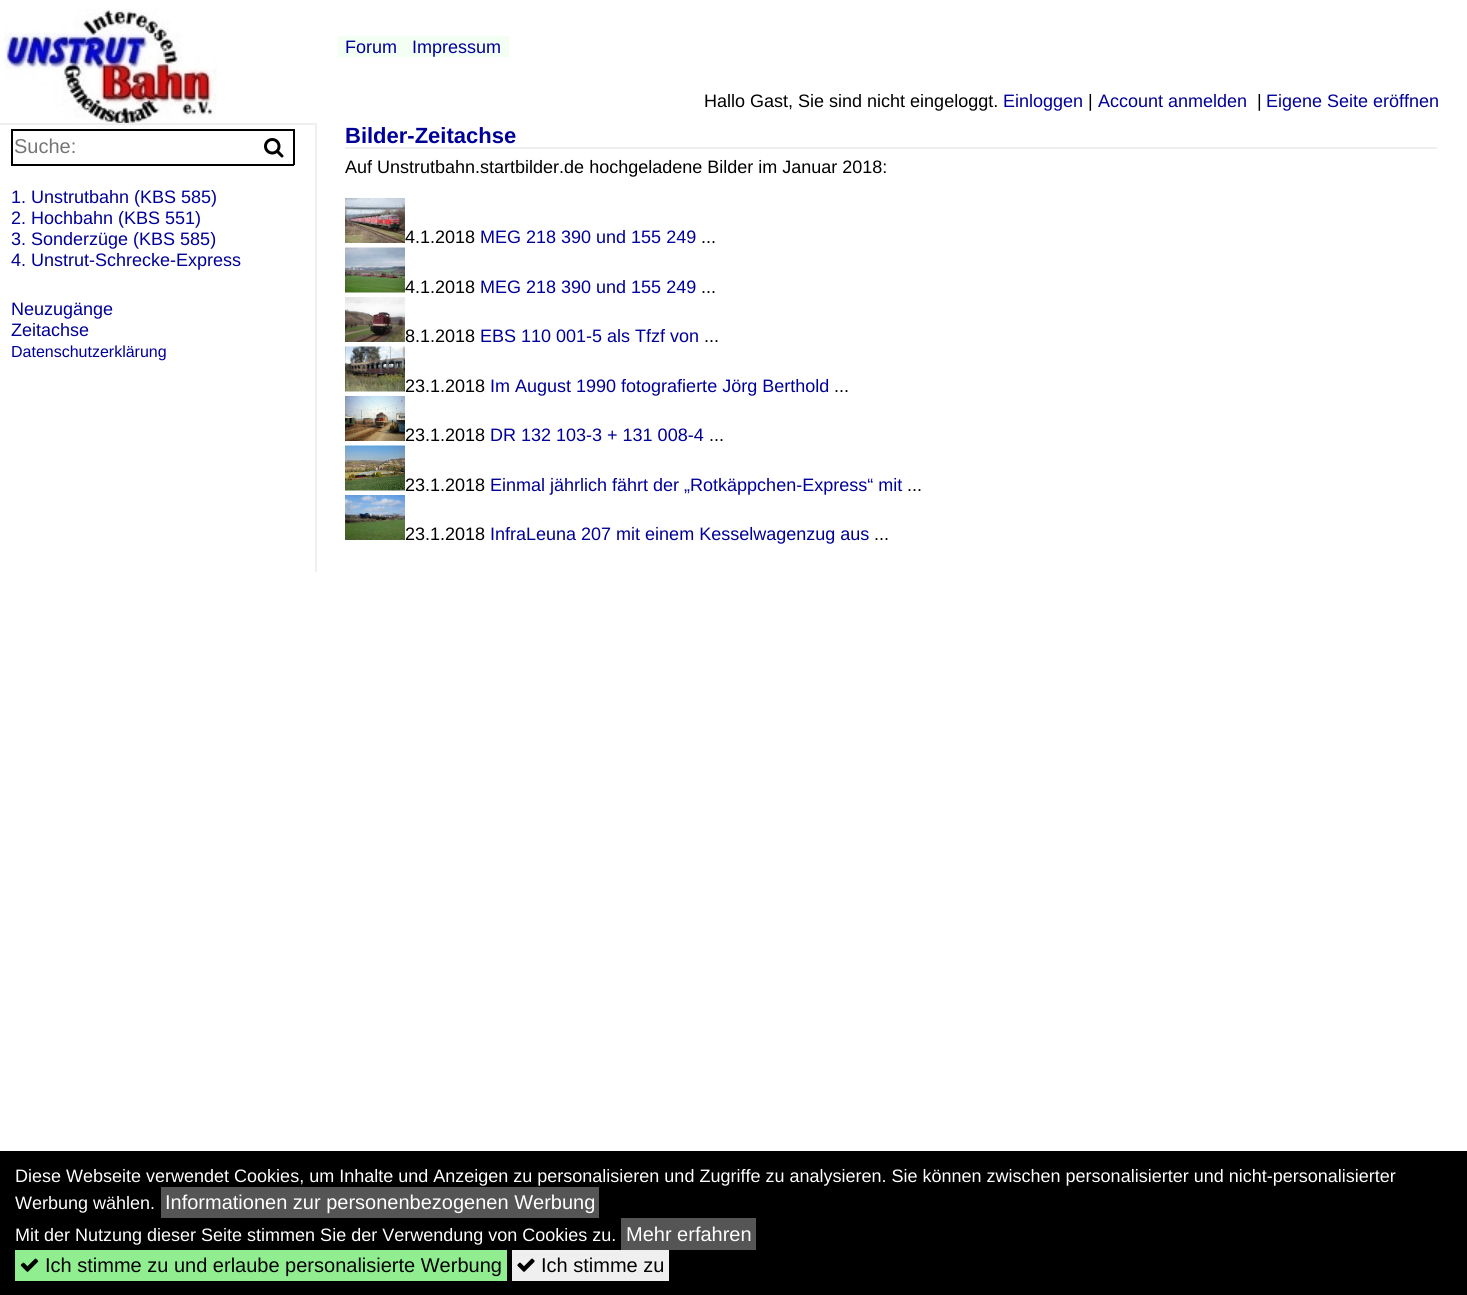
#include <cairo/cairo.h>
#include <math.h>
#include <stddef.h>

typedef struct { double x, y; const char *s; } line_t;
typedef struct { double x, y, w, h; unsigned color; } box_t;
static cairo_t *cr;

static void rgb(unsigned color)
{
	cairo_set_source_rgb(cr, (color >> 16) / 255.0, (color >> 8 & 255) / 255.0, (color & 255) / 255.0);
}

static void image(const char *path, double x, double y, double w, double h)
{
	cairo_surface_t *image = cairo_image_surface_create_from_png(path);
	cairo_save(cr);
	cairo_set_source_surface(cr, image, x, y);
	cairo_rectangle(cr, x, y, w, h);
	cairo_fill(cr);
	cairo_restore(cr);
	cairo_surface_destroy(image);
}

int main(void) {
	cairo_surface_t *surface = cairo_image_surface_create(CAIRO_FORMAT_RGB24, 1467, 1295);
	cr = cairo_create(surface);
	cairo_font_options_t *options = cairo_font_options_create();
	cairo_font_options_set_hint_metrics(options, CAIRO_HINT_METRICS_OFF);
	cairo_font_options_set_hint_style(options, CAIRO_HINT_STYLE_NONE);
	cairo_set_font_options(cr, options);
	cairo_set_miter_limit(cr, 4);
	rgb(0xffffff);
	cairo_paint(cr);
	image("img/1.png", 4, 9, 213, 120);
	{
		static const box_t items[] = {
			{338, 36, 171, 21, 0xf4fff4},
			{0, 123, 317, 2, 0xefefef},
			{315, 123, 2, 449, 0xefefef},
			{11, 129, 283, 2, 0x000000},
			{11, 164, 244, 2, 0x000000},
			{11, 129, 2, 36, 0x000000},
			{293, 129, 2, 36, 0x000000},
			{255, 164, 39, 2, 0x000000},
		};
		for (size_t i = 0; i < sizeof items / sizeof *items; i++) {
			rgb(items[i].color);
			cairo_rectangle(cr, items[i].x, items[i].y, items[i].w, items[i].h);
			cairo_fill(cr);
		}
	}
	image("img/2.png", 264, 138, 20, 20);
	rgb(0xefefef);
	cairo_rectangle(cr, 345, 147, 1092, 2);
	cairo_fill(cr);
	image("img/3.png", 345, 198, 60, 45);
	image("img/4.png", 345, 247, 60, 46);
	image("img/5.png", 345, 297, 60, 45);
	image("img/6.png", 345, 346, 60, 46);
	image("img/7.png", 345, 396, 60, 45);
	image("img/8.png", 345, 445, 60, 46);
	image("img/9.png", 345, 495, 60, 45);
	{
		static const box_t items[] = {
			{0, 1151, 1467, 144, 0x000000},
			{161, 1187, 438, 31, 0x555555},
			{621, 1218, 135, 32, 0x555555},
			{15, 1250, 492, 31, 0x90ee90},
		};
		for (size_t i = 0; i < sizeof items / sizeof *items; i++) {
			rgb(items[i].color);
			cairo_rectangle(cr, items[i].x, items[i].y, items[i].w, items[i].h);
			cairo_fill(cr);
		}
	}
	image("img/10.png", 20, 1258, 19, 14);
	rgb(0xefefef);
	cairo_rectangle(cr, 512, 1250, 157, 31);
	cairo_fill(cr);
	image("img/11.png", 517, 1258, 18, 14);
	cairo_select_font_face(cr, "Liberation Sans", CAIRO_FONT_SLANT_NORMAL, CAIRO_FONT_WEIGHT_NORMAL);
	cairo_set_font_size(cr, 18);
	rgb(0x000099);
	cairo_move_to(cr, 345, 53);
	cairo_show_text(cr, "Forum");
	cairo_move_to(cr, 412, 53);
	cairo_show_text(cr, "Impressum");
	rgb(0x000000);
	cairo_move_to(cr, 704, 107);
	cairo_show_text(cr, "Hallo Gast, Sie sind nicht eingeloggt.");
	rgb(0x000099);
	cairo_move_to(cr, 1003, 107);
	cairo_show_text(cr, "Einloggen");
	rgb(0x000000);
	cairo_move_to(cr, 1088, 107);
	cairo_show_text(cr, "|");
	rgb(0x000099);
	cairo_move_to(cr, 1098, 107);
	cairo_show_text(cr, "Account anmelden");
	rgb(0x000000);
	cairo_move_to(cr, 1257, 107);
	cairo_show_text(cr, "|");
	rgb(0x000099);
	cairo_move_to(cr, 1266, 107);
	cairo_show_text(cr, "Eigene Seite eröffnen");
	cairo_set_font_size(cr, 20);
	rgb(0x757575);
	cairo_move_to(cr, 14, 153);
	cairo_show_text(cr, "Suche:");
	cairo_set_font_size(cr, 18);
	rgb(0x000099);
	{
		static const line_t items[] = {
			{11, 203, "1. Unstrutbahn (KBS 585)"},
			{11, 224, "2. Hochbahn (KBS 551)"},
			{11, 245, "3. Sonderzüge (KBS 585)"},
			{11, 266, "4. Unstrut-Schrecke-Express"},
			{11, 315, "Neuzugänge"},
			{11, 336, "Zeitachse"},
		};
		for (size_t i = 0; i < sizeof items / sizeof *items; i++) {
			cairo_move_to(cr, items[i].x, items[i].y);
			cairo_show_text(cr, items[i].s);
		}
	}
	cairo_set_font_size(cr, 16);
	cairo_move_to(cr, 11, 357);
	cairo_show_text(cr, "Datenschutzerklärung");
	cairo_select_font_face(cr, "Liberation Sans", CAIRO_FONT_SLANT_NORMAL, CAIRO_FONT_WEIGHT_BOLD);
	cairo_set_font_size(cr, 22);
	cairo_move_to(cr, 345, 143);
	cairo_show_text(cr, "Bilder-Zeitachse");
	cairo_select_font_face(cr, "Liberation Sans", CAIRO_FONT_SLANT_NORMAL, CAIRO_FONT_WEIGHT_NORMAL);
	cairo_set_font_size(cr, 18);
	rgb(0x000000);
	cairo_move_to(cr, 345, 173);
	cairo_show_text(cr, "Auf Unstrutbahn.startbilder.de hochgeladene Bilder im Januar 2018:");
	cairo_move_to(cr, 405, 243);
	cairo_show_text(cr, "4.1.2018");
	rgb(0x000099);
	cairo_move_to(cr, 480, 243);
	cairo_show_text(cr, "MEG 218 390 und 155 249");
	rgb(0x000000);
	cairo_move_to(cr, 701, 243);
	cairo_show_text(cr, "...");
	cairo_move_to(cr, 405, 293);
	cairo_show_text(cr, "4.1.2018");
	rgb(0x000099);
	cairo_move_to(cr, 480, 293);
	cairo_show_text(cr, "MEG 218 390 und 155 249");
	rgb(0x000000);
	cairo_move_to(cr, 701, 293);
	cairo_show_text(cr, "...");
	cairo_move_to(cr, 405, 342);
	cairo_show_text(cr, "8.1.2018");
	rgb(0x000099);
	cairo_move_to(cr, 480, 342);
	cairo_show_text(cr, "EBS 110 001-5 als Tfzf von");
	rgb(0x000000);
	cairo_move_to(cr, 704, 342);
	cairo_show_text(cr, "...");
	cairo_move_to(cr, 405, 392);
	cairo_show_text(cr, "23.1.2018");
	rgb(0x000099);
	cairo_move_to(cr, 490, 392);
	cairo_show_text(cr, "Im August 1990 fotografierte Jörg Berthold");
	rgb(0x000000);
	cairo_move_to(cr, 834, 392);
	cairo_show_text(cr, "...");
	cairo_move_to(cr, 405, 441);
	cairo_show_text(cr, "23.1.2018");
	rgb(0x000099);
	cairo_move_to(cr, 490, 441);
	cairo_show_text(cr, "DR 132 103-3 + 131 008-4");
	rgb(0x000000);
	cairo_move_to(cr, 709, 441);
	cairo_show_text(cr, "...");
	cairo_move_to(cr, 405, 491);
	cairo_show_text(cr, "23.1.2018");
	rgb(0x000099);
	cairo_move_to(cr, 490, 491);
	cairo_show_text(cr, "Einmal jährlich fährt der „Rotkäppchen-Express“ mit");
	rgb(0x000000);
	cairo_move_to(cr, 907, 491);
	cairo_show_text(cr, "...");
	cairo_move_to(cr, 405, 540);
	cairo_show_text(cr, "23.1.2018");
	rgb(0x000099);
	cairo_move_to(cr, 490, 540);
	cairo_show_text(cr, "InfraLeuna 207 mit einem Kesselwagenzug aus");
	rgb(0x000000);
	cairo_move_to(cr, 874, 540);
	cairo_show_text(cr, "...");
	rgb(0xffffff);
	cairo_move_to(cr, 15, 1182);
	cairo_show_text(cr, "Diese Webseite verwendet Cookies, um Inhalte und Anzeigen zu personalisieren und Zugriffe zu analysieren. Sie können zwischen personalisierter und nicht-personalisierter");
	cairo_move_to(cr, 15, 1209);
	cairo_show_text(cr, "Werbung wählen.");
	cairo_set_font_size(cr, 20);
	cairo_move_to(cr, 165, 1209);
	cairo_show_text(cr, "Informationen zur personenbezogenen Werbung");
	cairo_set_font_size(cr, 18);
	cairo_move_to(cr, 15, 1241);
	cairo_show_text(cr, "Mit der Nutzung dieser Seite stimmen Sie der Verwendung von Cookies zu.");
	cairo_set_font_size(cr, 20);
	cairo_move_to(cr, 626, 1241);
	cairo_show_text(cr, "Mehr erfahren");
	rgb(0x000000);
	cairo_move_to(cr, 45, 1272);
	cairo_show_text(cr, "Ich stimme zu und erlaube personalisierte Werbung");
	cairo_move_to(cr, 541, 1272);
	cairo_show_text(cr, "Ich stimme zu");
	cairo_surface_write_to_png(surface, "page.png");
	cairo_font_options_destroy(options);
	cairo_destroy(cr);
	cairo_surface_destroy(surface);
	return 0;
}
